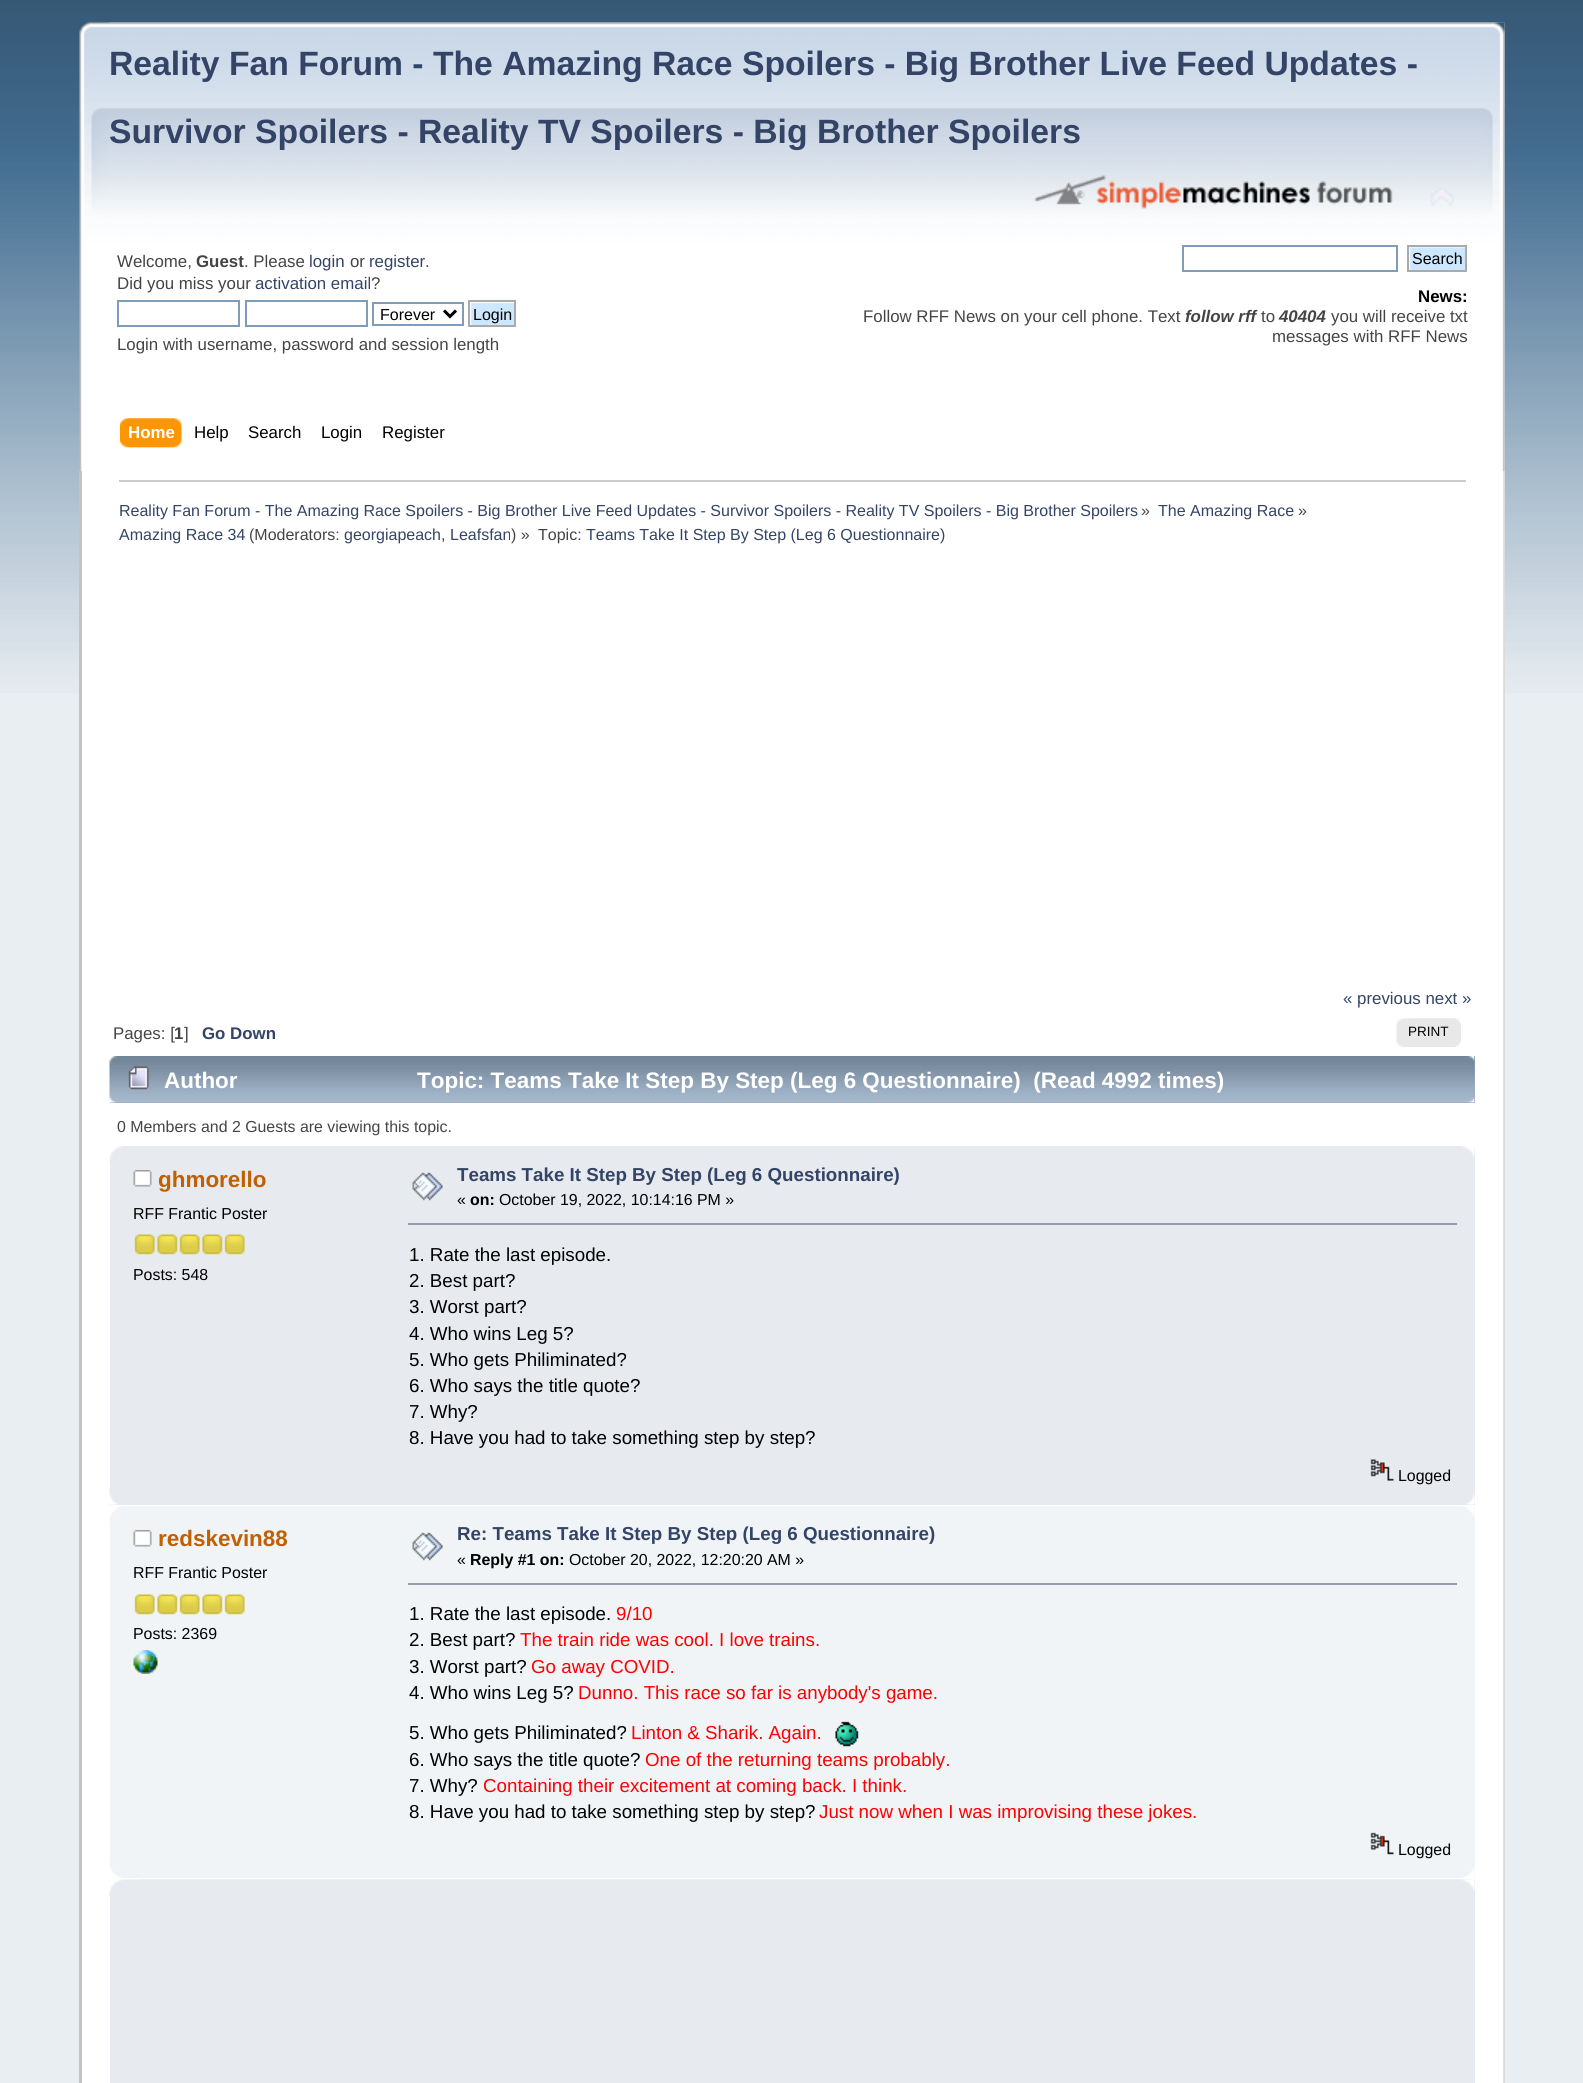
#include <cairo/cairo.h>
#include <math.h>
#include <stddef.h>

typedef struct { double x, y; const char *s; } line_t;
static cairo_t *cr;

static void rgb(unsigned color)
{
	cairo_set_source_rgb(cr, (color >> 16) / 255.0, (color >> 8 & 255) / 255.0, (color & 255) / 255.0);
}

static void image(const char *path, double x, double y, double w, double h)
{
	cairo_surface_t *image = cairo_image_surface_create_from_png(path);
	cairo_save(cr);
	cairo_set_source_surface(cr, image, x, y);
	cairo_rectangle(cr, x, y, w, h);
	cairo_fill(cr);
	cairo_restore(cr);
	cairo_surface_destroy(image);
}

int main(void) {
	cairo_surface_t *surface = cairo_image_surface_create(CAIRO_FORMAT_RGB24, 1583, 2083);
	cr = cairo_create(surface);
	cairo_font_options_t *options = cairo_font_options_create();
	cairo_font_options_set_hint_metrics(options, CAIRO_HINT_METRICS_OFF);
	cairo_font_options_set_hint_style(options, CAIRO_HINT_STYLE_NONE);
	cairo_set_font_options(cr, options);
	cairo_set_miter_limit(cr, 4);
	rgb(0xe9eef2);
	cairo_paint(cr);
	image("img/1.png", 0, 0, 1583, 693);
	image("img/2.png", 79, 22, 1426, 449);
	image("img/3.png", 109, 22, 1396, 449);
	image("img/4.png", 1034, 175, 359, 34);
	image("img/5.png", 1430, 188, 24, 18);
	cairo_rectangle(cr, 118, 301, 121, 25);
	rgb(0x7f9db9);
	cairo_stroke(cr);
	cairo_rectangle(cr, 246, 301, 121, 25);
	cairo_stroke(cr);
	cairo_rectangle(cr, 373, 303, 90, 22);
	cairo_stroke(cr);
	cairo_new_path(cr);
	cairo_move_to(cr, 444, 310.5);
	cairo_line_to(cr, 450, 316.5);
	cairo_line_to(cr, 456, 310.5);
	rgb(0x000000);
	cairo_set_line_width(cr, 3);
	cairo_stroke(cr);
	image("img/6.png", 470, 302, 44, 23);
	cairo_rectangle(cr, 469, 301, 46, 25);
	rgb(0xaaaaaa);
	cairo_set_line_width(cr, 2);
	cairo_stroke(cr);
	cairo_rectangle(cr, 1183, 246, 214, 25);
	rgb(0x7f9db9);
	cairo_stroke(cr);
	image("img/7.png", 1409, 247, 56, 23);
	cairo_rectangle(cr, 1408, 246, 58, 25);
	rgb(0xaaaaaa);
	cairo_stroke(cr);
	image("img/8.png", 127, 418, 55, 30);
	image("img/9.png", 120, 418, 54, 30);
	rgb(0xffffff);
	cairo_rectangle(cr, 82, 471, 1423, 1612);
	cairo_fill(cr);
	rgb(0xc3c3c3);
	cairo_rectangle(cr, 79, 471, 3, 1612);
	cairo_fill(cr);
	image("img/10.png", 1503, 471, 2, 1612);
	rgb(0xcccccc);
	cairo_rectangle(cr, 119, 480, 1347, 2);
	cairo_fill(cr);
	image("img/11.png", 1396, 1018, 65, 29);
	image("img/12.png", 1409, 1018, 52, 29);
	rgb(0x99abbf);
	cairo_rectangle(cr, 110, 1056, 1365, 47);
	cairo_fill(cr);
	image("img/13.png", 109, 1056, 1366, 47);
	image("img/14.png", 1468, 1056, 7, 47);
	image("img/15.png", 128, 1066, 21, 24);
	rgb(0xe7eaef);
	cairo_rectangle(cr, 110, 1146, 1365, 359);
	cairo_fill(cr);
	image("img/16.png", 109, 1146, 13, 17);
	image("img/17.png", 1462, 1146, 13, 12);
	image("img/18.png", 133, 1170, 19, 17);
	image("img/19.png", 134, 1234, 21, 21);
	image("img/20.png", 157, 1234, 21, 21);
	image("img/19.png", 179, 1234, 21, 21);
	image("img/20.png", 202, 1234, 21, 21);
	image("img/19.png", 224, 1234, 21, 21);
	image("img/21.png", 412, 1172, 31, 29);
	rgb(0x9999aa);
	cairo_rectangle(cr, 408, 1223, 1049, 2);
	cairo_fill(cr);
	image("img/22.png", 1370, 1459, 24, 22);
	image("img/23.png", 109, 1488, 9, 17);
	image("img/24.png", 1466, 1494, 9, 11);
	rgb(0xf0f4f7);
	cairo_rectangle(cr, 110, 1506, 1365, 372);
	cairo_fill(cr);
	image("img/25.png", 109, 1506, 12, 17);
	image("img/26.png", 1463, 1506, 12, 11);
	image("img/27.png", 133, 1530, 19, 17);
	image("img/28.png", 134, 1594, 21, 21);
	image("img/29.png", 157, 1594, 21, 21);
	image("img/28.png", 179, 1594, 21, 21);
	image("img/29.png", 202, 1594, 21, 21);
	image("img/28.png", 224, 1594, 21, 21);
	image("img/30.png", 133, 1650, 25, 24);
	image("img/31.png", 412, 1532, 31, 29);
	rgb(0x9999aa);
	cairo_rectangle(cr, 408, 1583, 1049, 2);
	cairo_fill(cr);
	image("img/32.png", 835, 1721, 24, 26);
	image("img/33.png", 1370, 1832, 24, 23);
	image("img/34.png", 109, 1861, 12, 17);
	image("img/35.png", 1463, 1867, 12, 11);
	rgb(0xe7eaef);
	cairo_rectangle(cr, 110, 1880, 1365, 203);
	cairo_fill(cr);
	image("img/36.png", 109, 1879, 1366, 17);
	image("img/37.png", 140, 1879, 1335, 12);
	cairo_select_font_face(cr, "Liberation Sans", CAIRO_FONT_SLANT_NORMAL, CAIRO_FONT_WEIGHT_BOLD);
	cairo_set_font_size(cr, 33.7);
	rgb(0x334466);
	cairo_move_to(cr, 109, 75);
	cairo_show_text(cr, "Reality Fan Forum - The Amazing Race Spoilers - Big Brother Live Feed Updates -");
	cairo_move_to(cr, 109, 143);
	cairo_show_text(cr, "Survivor Spoilers - Reality TV Spoilers - Big Brother Spoilers");
	cairo_select_font_face(cr, "Liberation Sans", CAIRO_FONT_SLANT_NORMAL, CAIRO_FONT_WEIGHT_NORMAL);
	cairo_set_font_size(cr, 16.85);
	rgb(0x444444);
	cairo_move_to(cr, 117, 267);
	cairo_show_text(cr, "Welcome,");
	cairo_select_font_face(cr, "Liberation Sans", CAIRO_FONT_SLANT_NORMAL, CAIRO_FONT_WEIGHT_BOLD);
	cairo_move_to(cr, 196, 267);
	cairo_show_text(cr, "Guest");
	cairo_select_font_face(cr, "Liberation Sans", CAIRO_FONT_SLANT_NORMAL, CAIRO_FONT_WEIGHT_NORMAL);
	cairo_move_to(cr, 244, 267);
	cairo_show_text(cr, ". Please");
	rgb(0x334466);
	cairo_move_to(cr, 309, 267);
	cairo_show_text(cr, "login");
	rgb(0x444444);
	cairo_move_to(cr, 350, 267);
	cairo_show_text(cr, "or");
	rgb(0x334466);
	cairo_move_to(cr, 369, 267);
	cairo_show_text(cr, "register");
	rgb(0x444444);
	cairo_move_to(cr, 425, 267);
	cairo_show_text(cr, ".");
	cairo_move_to(cr, 117, 289);
	cairo_show_text(cr, "Did you miss your");
	rgb(0x334466);
	cairo_move_to(cr, 255, 289);
	cairo_show_text(cr, "activation email");
	rgb(0x444444);
	cairo_move_to(cr, 371, 289);
	cairo_show_text(cr, "?");
	cairo_set_font_size(cr, 16);
	rgb(0x000000);
	cairo_move_to(cr, 380, 320);
	cairo_show_text(cr, "Forever");
	cairo_move_to(cr, 473, 320);
	cairo_show_text(cr, "Login");
	cairo_set_font_size(cr, 16.85);
	rgb(0x444444);
	cairo_move_to(cr, 117, 350);
	cairo_show_text(cr, "Login with username, password and session length");
	cairo_set_font_size(cr, 16);
	rgb(0x000000);
	cairo_move_to(cr, 1412, 264);
	cairo_show_text(cr, "Search");
	cairo_select_font_face(cr, "Liberation Sans", CAIRO_FONT_SLANT_NORMAL, CAIRO_FONT_WEIGHT_BOLD);
	cairo_set_font_size(cr, 16.85);
	cairo_move_to(cr, 1418, 302);
	cairo_show_text(cr, "News:");
	cairo_select_font_face(cr, "Liberation Sans", CAIRO_FONT_SLANT_NORMAL, CAIRO_FONT_WEIGHT_NORMAL);
	rgb(0x444444);
	cairo_move_to(cr, 863, 322);
	cairo_show_text(cr, "Follow RFF News on your cell phone. Text");
	cairo_select_font_face(cr, "Liberation Sans", CAIRO_FONT_SLANT_ITALIC, CAIRO_FONT_WEIGHT_BOLD);
	cairo_move_to(cr, 1185, 322);
	cairo_show_text(cr, "follow rff");
	cairo_select_font_face(cr, "Liberation Sans", CAIRO_FONT_SLANT_NORMAL, CAIRO_FONT_WEIGHT_NORMAL);
	cairo_move_to(cr, 1261, 322);
	cairo_show_text(cr, "to");
	cairo_select_font_face(cr, "Liberation Sans", CAIRO_FONT_SLANT_ITALIC, CAIRO_FONT_WEIGHT_BOLD);
	cairo_move_to(cr, 1279, 322);
	cairo_show_text(cr, "40404");
	cairo_select_font_face(cr, "Liberation Sans", CAIRO_FONT_SLANT_NORMAL, CAIRO_FONT_WEIGHT_NORMAL);
	cairo_move_to(cr, 1331, 322);
	cairo_show_text(cr, "you will receive txt");
	cairo_move_to(cr, 1272, 342);
	cairo_show_text(cr, "messages with RFF News");
	cairo_select_font_face(cr, "Liberation Sans", CAIRO_FONT_SLANT_NORMAL, CAIRO_FONT_WEIGHT_BOLD);
	rgb(0xffffff);
	cairo_move_to(cr, 128, 438);
	cairo_show_text(cr, "Home");
	cairo_select_font_face(cr, "Liberation Sans", CAIRO_FONT_SLANT_NORMAL, CAIRO_FONT_WEIGHT_NORMAL);
	rgb(0x000000);
	{
		static const line_t items[] = {
			{194, 438, "Help"},
			{248, 438, "Search"},
			{321, 438, "Login"},
			{382, 438, "Register"},
		};
		for (size_t i = 0; i < sizeof items / sizeof *items; i++) {
			cairo_move_to(cr, items[i].x, items[i].y);
			cairo_show_text(cr, items[i].s);
		}
	}
	cairo_set_font_size(cr, 16);
	rgb(0x334466);
	cairo_move_to(cr, 119, 516);
	cairo_show_text(cr, "Reality Fan Forum - The Amazing Race Spoilers - Big Brother Live Feed Updates - Survivor Spoilers - Reality TV Spoilers - Big Brother Spoilers");
	rgb(0x444444);
	cairo_move_to(cr, 1141, 516);
	cairo_show_text(cr, "»");
	rgb(0x334466);
	cairo_move_to(cr, 1158, 516);
	cairo_show_text(cr, "The Amazing Race");
	rgb(0x444444);
	cairo_move_to(cr, 1298, 516);
	cairo_show_text(cr, "»");
	rgb(0x334466);
	cairo_move_to(cr, 119, 540);
	cairo_show_text(cr, "Amazing Race 34");
	rgb(0x444444);
	cairo_move_to(cr, 249, 540);
	cairo_show_text(cr, "(Moderators:");
	rgb(0x334466);
	cairo_move_to(cr, 344, 540);
	cairo_show_text(cr, "georgiapeach");
	rgb(0x444444);
	cairo_move_to(cr, 441, 540);
	cairo_show_text(cr, ",");
	rgb(0x334466);
	cairo_move_to(cr, 450, 540);
	cairo_show_text(cr, "Leafsfan");
	rgb(0x444444);
	cairo_move_to(cr, 511, 540);
	cairo_show_text(cr, ") »");
	cairo_move_to(cr, 538, 540);
	cairo_show_text(cr, "Topic:");
	rgb(0x334466);
	cairo_move_to(cr, 586, 540);
	cairo_show_text(cr, "Teams Take It Step By Step (Leg 6 Questionnaire)");
	cairo_set_font_size(cr, 16.85);
	cairo_move_to(cr, 1343, 1004);
	cairo_show_text(cr, "« previous next »");
	rgb(0x444444);
	cairo_move_to(cr, 113, 1039);
	cairo_show_text(cr, "Pages: [");
	cairo_select_font_face(cr, "Liberation Sans", CAIRO_FONT_SLANT_NORMAL, CAIRO_FONT_WEIGHT_BOLD);
	cairo_move_to(cr, 174, 1039);
	cairo_show_text(cr, "1");
	cairo_select_font_face(cr, "Liberation Sans", CAIRO_FONT_SLANT_NORMAL, CAIRO_FONT_WEIGHT_NORMAL);
	cairo_move_to(cr, 184, 1039);
	cairo_show_text(cr, "]");
	cairo_select_font_face(cr, "Liberation Sans", CAIRO_FONT_SLANT_NORMAL, CAIRO_FONT_WEIGHT_BOLD);
	rgb(0x334466);
	cairo_move_to(cr, 202, 1039);
	cairo_show_text(cr, "Go Down");
	cairo_select_font_face(cr, "Liberation Sans", CAIRO_FONT_SLANT_NORMAL, CAIRO_FONT_WEIGHT_NORMAL);
	cairo_set_font_size(cr, 13.5);
	rgb(0x000000);
	cairo_move_to(cr, 1408, 1036);
	cairo_show_text(cr, "PRINT");
	cairo_select_font_face(cr, "Liberation Sans", CAIRO_FONT_SLANT_NORMAL, CAIRO_FONT_WEIGHT_BOLD);
	cairo_set_font_size(cr, 22.45);
	rgb(0xffffff);
	cairo_move_to(cr, 164, 1088);
	cairo_show_text(cr, "Author");
	cairo_move_to(cr, 417, 1088);
	cairo_show_text(cr, "Topic: Teams Take It Step By Step (Leg 6 Questionnaire)  (Read 4992 times)");
	cairo_select_font_face(cr, "Liberation Sans", CAIRO_FONT_SLANT_NORMAL, CAIRO_FONT_WEIGHT_NORMAL);
	cairo_set_font_size(cr, 15.9);
	rgb(0x444444);
	cairo_move_to(cr, 117, 1132);
	cairo_show_text(cr, "0 Members and 2 Guests are viewing this topic.");
	cairo_select_font_face(cr, "Liberation Sans", CAIRO_FONT_SLANT_NORMAL, CAIRO_FONT_WEIGHT_BOLD);
	cairo_set_font_size(cr, 22.45);
	rgb(0xc06002);
	cairo_move_to(cr, 158, 1187);
	cairo_show_text(cr, "ghmorello");
	cairo_select_font_face(cr, "Liberation Sans", CAIRO_FONT_SLANT_NORMAL, CAIRO_FONT_WEIGHT_NORMAL);
	cairo_set_font_size(cr, 15.9);
	rgb(0x000000);
	cairo_move_to(cr, 133, 1219);
	cairo_show_text(cr, "RFF Frantic Poster");
	cairo_move_to(cr, 133, 1280);
	cairo_show_text(cr, "Posts: 548");
	cairo_select_font_face(cr, "Liberation Sans", CAIRO_FONT_SLANT_NORMAL, CAIRO_FONT_WEIGHT_BOLD);
	cairo_set_font_size(cr, 18.75);
	rgb(0x334466);
	cairo_move_to(cr, 457, 1181);
	cairo_show_text(cr, "Teams Take It Step By Step (Leg 6 Questionnaire)");
	cairo_select_font_face(cr, "Liberation Sans", CAIRO_FONT_SLANT_NORMAL, CAIRO_FONT_WEIGHT_NORMAL);
	cairo_set_font_size(cr, 15.9);
	rgb(0x000000);
	cairo_move_to(cr, 457, 1205);
	cairo_show_text(cr, "«");
	cairo_select_font_face(cr, "Liberation Sans", CAIRO_FONT_SLANT_NORMAL, CAIRO_FONT_WEIGHT_BOLD);
	cairo_move_to(cr, 470, 1205);
	cairo_show_text(cr, "on:");
	cairo_select_font_face(cr, "Liberation Sans", CAIRO_FONT_SLANT_NORMAL, CAIRO_FONT_WEIGHT_NORMAL);
	cairo_move_to(cr, 499, 1205);
	cairo_show_text(cr, "October 19, 2022, 10:14:16 PM »");
	cairo_set_font_size(cr, 18.75);
	{
		static const line_t items[] = {
			{409, 1261, "1. Rate the last episode."},
			{409, 1287, "2. Best part?"},
			{409, 1313, "3. Worst part?"},
			{409, 1340, "4. Who wins Leg 5?"},
			{409, 1366, "5. Who gets Philiminated?"},
			{409, 1392, "6. Who says the title quote?"},
			{409, 1418, "7. Why?"},
			{409, 1444, "8. Have you had to take something step by step?"},
		};
		for (size_t i = 0; i < sizeof items / sizeof *items; i++) {
			cairo_move_to(cr, items[i].x, items[i].y);
			cairo_show_text(cr, items[i].s);
		}
	}
	cairo_set_font_size(cr, 15.9);
	cairo_move_to(cr, 1398, 1481);
	cairo_show_text(cr, "Logged");
	cairo_select_font_face(cr, "Liberation Sans", CAIRO_FONT_SLANT_NORMAL, CAIRO_FONT_WEIGHT_BOLD);
	cairo_set_font_size(cr, 22.45);
	rgb(0xc06002);
	cairo_move_to(cr, 158, 1546);
	cairo_show_text(cr, "redskevin88");
	cairo_select_font_face(cr, "Liberation Sans", CAIRO_FONT_SLANT_NORMAL, CAIRO_FONT_WEIGHT_NORMAL);
	cairo_set_font_size(cr, 15.9);
	rgb(0x000000);
	cairo_move_to(cr, 133, 1578);
	cairo_show_text(cr, "RFF Frantic Poster");
	cairo_move_to(cr, 133, 1639);
	cairo_show_text(cr, "Posts: 2369");
	cairo_select_font_face(cr, "Liberation Sans", CAIRO_FONT_SLANT_NORMAL, CAIRO_FONT_WEIGHT_BOLD);
	cairo_set_font_size(cr, 18.75);
	rgb(0x334466);
	cairo_move_to(cr, 457, 1540);
	cairo_show_text(cr, "Re: Teams Take It Step By Step (Leg 6 Questionnaire)");
	cairo_select_font_face(cr, "Liberation Sans", CAIRO_FONT_SLANT_NORMAL, CAIRO_FONT_WEIGHT_NORMAL);
	cairo_set_font_size(cr, 15.9);
	rgb(0x000000);
	cairo_move_to(cr, 457, 1565);
	cairo_show_text(cr, "«");
	cairo_select_font_face(cr, "Liberation Sans", CAIRO_FONT_SLANT_NORMAL, CAIRO_FONT_WEIGHT_BOLD);
	cairo_move_to(cr, 470, 1565);
	cairo_show_text(cr, "Reply #1 on:");
	cairo_select_font_face(cr, "Liberation Sans", CAIRO_FONT_SLANT_NORMAL, CAIRO_FONT_WEIGHT_NORMAL);
	cairo_move_to(cr, 569, 1565);
	cairo_show_text(cr, "October 20, 2022, 12:20:20 AM »");
	cairo_set_font_size(cr, 18.75);
	cairo_move_to(cr, 409, 1620);
	cairo_show_text(cr, "1. Rate the last episode.");
	rgb(0xff0000);
	cairo_move_to(cr, 616, 1620);
	cairo_show_text(cr, "9/10");
	rgb(0x000000);
	cairo_move_to(cr, 409, 1646);
	cairo_show_text(cr, "2. Best part?");
	rgb(0xff0000);
	cairo_move_to(cr, 520, 1646);
	cairo_show_text(cr, "The train ride was cool. I love trains.");
	rgb(0x000000);
	cairo_move_to(cr, 409, 1673);
	cairo_show_text(cr, "3. Worst part?");
	rgb(0xff0000);
	cairo_move_to(cr, 531, 1673);
	cairo_show_text(cr, "Go away COVID.");
	rgb(0x000000);
	cairo_move_to(cr, 409, 1699);
	cairo_show_text(cr, "4. Who wins Leg 5?");
	rgb(0xff0000);
	cairo_move_to(cr, 578, 1699);
	cairo_show_text(cr, "Dunno. This race so far is anybody's game.");
	rgb(0x000000);
	cairo_move_to(cr, 409, 1739);
	cairo_show_text(cr, "5. Who gets Philiminated?");
	rgb(0xff0000);
	cairo_move_to(cr, 631, 1739);
	cairo_show_text(cr, "Linton & Sharik. Again.");
	rgb(0x000000);
	cairo_move_to(cr, 409, 1766);
	cairo_show_text(cr, "6. Who says the title quote?");
	rgb(0xff0000);
	cairo_move_to(cr, 645, 1766);
	cairo_show_text(cr, "One of the returning teams probably.");
	rgb(0x000000);
	cairo_move_to(cr, 409, 1792);
	cairo_show_text(cr, "7. Why?");
	rgb(0xff0000);
	cairo_move_to(cr, 483, 1792);
	cairo_show_text(cr, "Containing their excitement at coming back. I think.");
	rgb(0x000000);
	cairo_move_to(cr, 409, 1818);
	cairo_show_text(cr, "8. Have you had to take something step by step?");
	rgb(0xff0000);
	cairo_move_to(cr, 819, 1818);
	cairo_show_text(cr, "Just now when I was improvising these jokes.");
	cairo_set_font_size(cr, 15.9);
	rgb(0x000000);
	cairo_move_to(cr, 1398, 1855);
	cairo_show_text(cr, "Logged");
	cairo_surface_write_to_png(surface, "page.png");
	cairo_font_options_destroy(options);
	cairo_destroy(cr);
	cairo_surface_destroy(surface);
	return 0;
}
